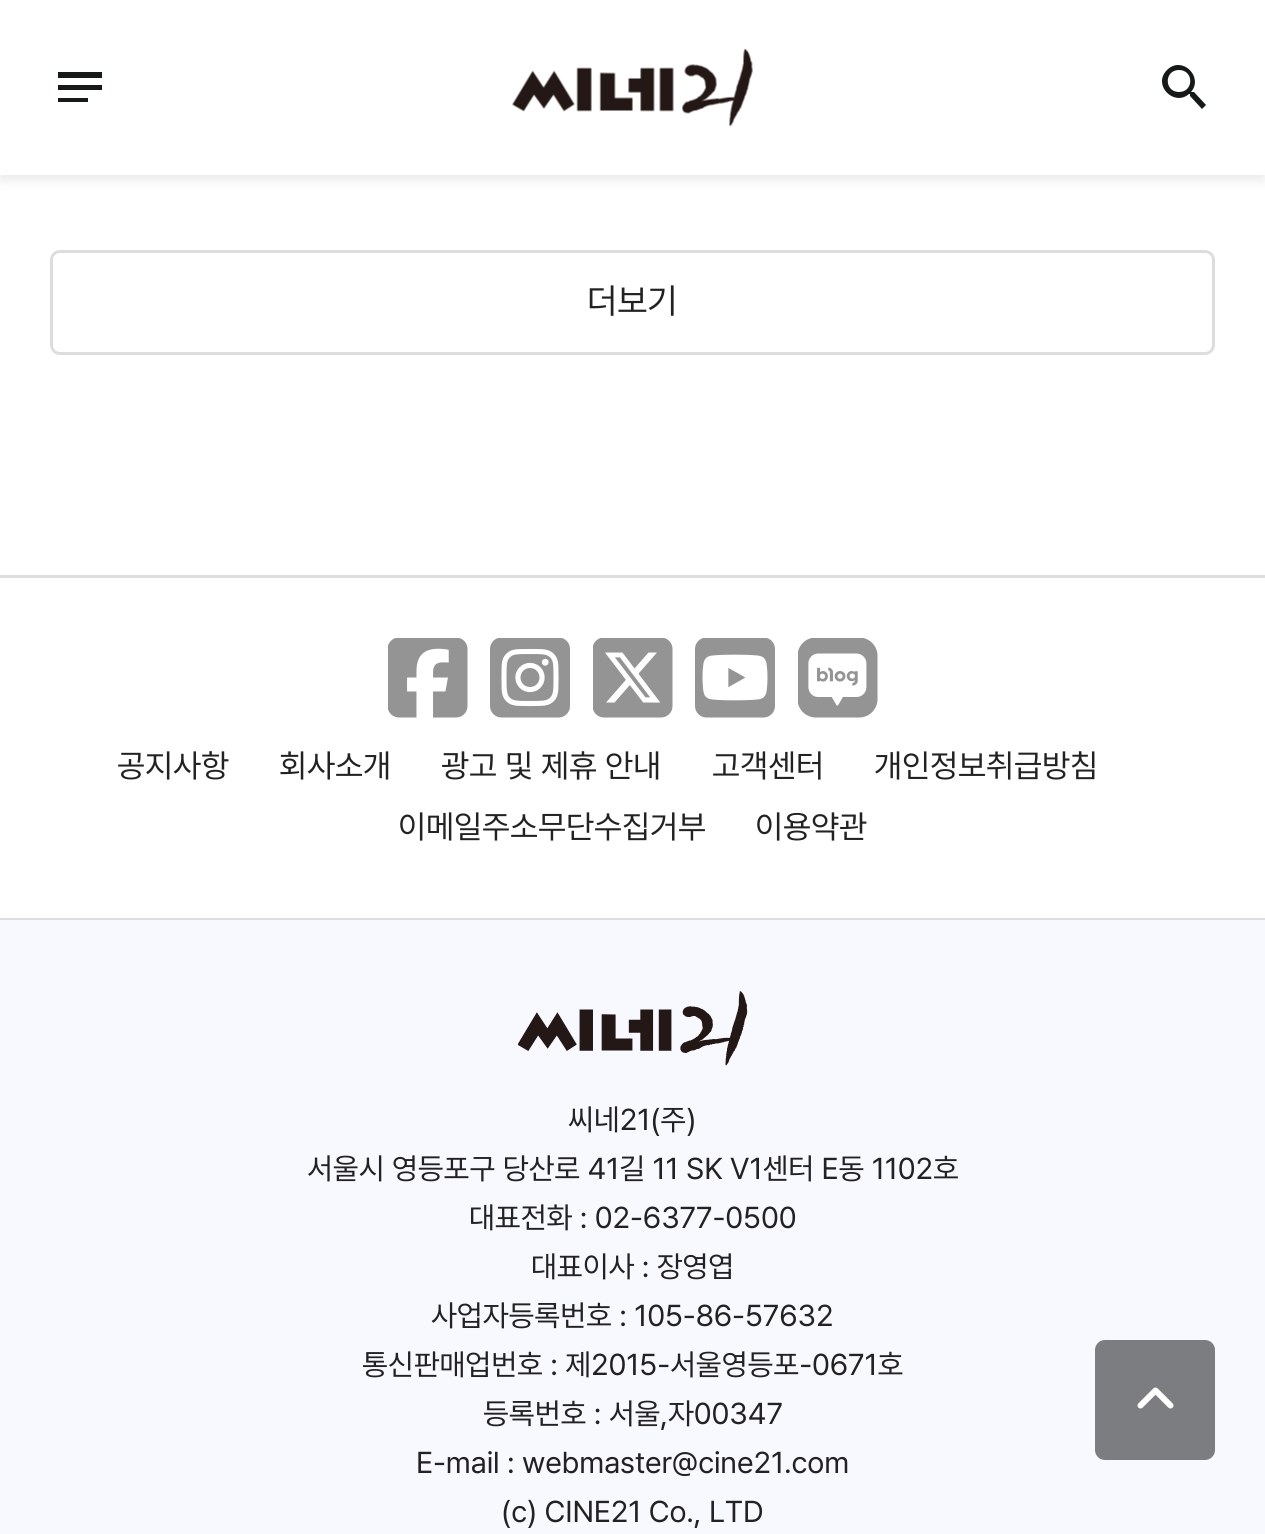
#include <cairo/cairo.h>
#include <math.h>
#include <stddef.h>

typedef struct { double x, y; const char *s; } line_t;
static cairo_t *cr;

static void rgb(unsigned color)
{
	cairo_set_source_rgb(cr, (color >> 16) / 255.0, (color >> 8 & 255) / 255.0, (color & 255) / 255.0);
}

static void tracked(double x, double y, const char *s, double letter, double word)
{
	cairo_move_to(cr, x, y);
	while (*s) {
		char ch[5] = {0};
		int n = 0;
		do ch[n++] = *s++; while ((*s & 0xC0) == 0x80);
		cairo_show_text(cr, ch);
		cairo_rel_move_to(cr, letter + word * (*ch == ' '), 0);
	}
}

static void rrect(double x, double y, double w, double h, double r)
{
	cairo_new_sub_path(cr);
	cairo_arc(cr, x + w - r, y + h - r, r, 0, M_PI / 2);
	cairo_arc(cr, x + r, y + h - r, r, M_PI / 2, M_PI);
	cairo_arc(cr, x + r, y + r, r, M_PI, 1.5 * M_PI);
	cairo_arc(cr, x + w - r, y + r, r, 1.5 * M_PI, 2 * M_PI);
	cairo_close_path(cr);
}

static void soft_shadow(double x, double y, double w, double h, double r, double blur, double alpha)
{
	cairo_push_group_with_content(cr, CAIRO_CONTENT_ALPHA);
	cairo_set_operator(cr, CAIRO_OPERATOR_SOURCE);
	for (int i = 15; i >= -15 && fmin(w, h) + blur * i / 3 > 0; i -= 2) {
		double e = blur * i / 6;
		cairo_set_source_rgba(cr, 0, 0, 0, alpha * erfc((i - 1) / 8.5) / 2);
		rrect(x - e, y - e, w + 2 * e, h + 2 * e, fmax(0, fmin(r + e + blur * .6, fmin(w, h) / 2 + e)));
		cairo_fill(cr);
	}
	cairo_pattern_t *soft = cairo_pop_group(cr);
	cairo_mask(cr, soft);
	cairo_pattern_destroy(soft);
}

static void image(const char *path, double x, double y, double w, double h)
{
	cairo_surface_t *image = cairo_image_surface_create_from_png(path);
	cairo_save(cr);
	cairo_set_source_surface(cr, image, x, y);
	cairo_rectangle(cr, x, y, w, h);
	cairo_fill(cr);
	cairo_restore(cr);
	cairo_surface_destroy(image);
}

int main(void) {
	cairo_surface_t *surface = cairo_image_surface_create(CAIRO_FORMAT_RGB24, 1265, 1534);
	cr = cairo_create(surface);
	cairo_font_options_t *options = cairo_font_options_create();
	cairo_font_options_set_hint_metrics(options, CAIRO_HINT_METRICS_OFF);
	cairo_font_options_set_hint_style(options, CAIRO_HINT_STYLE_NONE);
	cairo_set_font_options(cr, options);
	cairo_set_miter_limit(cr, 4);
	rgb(0xffffff);
	cairo_paint(cr);
	rgb(0x000000);
	soft_shadow(0, 5, 1265, 175, 0, 6, 0.09);
	rgb(0xffffff);
	cairo_rectangle(cr, 0, 0, 1265, 175);
	cairo_fill(cr);
	rgb(0x151918);
	cairo_new_path(cr);
	cairo_move_to(cr, 58, 102);
	cairo_line_to(cr, 88, 102);
	cairo_line_to(cr, 88, 98);
	cairo_line_to(cr, 58, 98);
	cairo_close_path(cr);
	cairo_move_to(cr, 58, 72);
	cairo_line_to(cr, 58, 78);
	cairo_line_to(cr, 102, 78);
	cairo_line_to(cr, 102, 72);
	cairo_close_path(cr);
	cairo_move_to(cr, 58, 90);
	cairo_line_to(cr, 102, 90);
	cairo_line_to(cr, 102, 85);
	cairo_line_to(cr, 58, 85);
	cairo_close_path(cr);
	cairo_fill(cr);
	image("img/1.png", 512, 48, 241, 79);
	cairo_new_path(cr);
	cairo_move_to(cr, 1194, 92);
	cairo_line_to(cr, 1192, 92);
	cairo_line_to(cr, 1191, 92);
	cairo_curve_to(cr, 1204, 77, 1182, 55, 1167, 70);
	cairo_curve_to(cr, 1152, 85, 1174, 107, 1189, 94);
	cairo_line_to(cr, 1190, 94);
	cairo_line_to(cr, 1190, 96);
	cairo_line_to(cr, 1202, 109);
	cairo_line_to(cr, 1206, 105);
	cairo_close_path(cr);
	cairo_move_to(cr, 1179, 92);
	cairo_curve_to(cr, 1164, 92, 1164, 70, 1179, 70);
	cairo_curve_to(cr, 1194, 70, 1194, 92, 1179, 92);
	cairo_close_path(cr);
	cairo_fill(cr);
	rrect(51.5, 251.5, 1162, 102, 8.5);
	rgb(0xdddddd);
	cairo_set_line_width(cr, 3);
	cairo_stroke(cr);
	cairo_rectangle(cr, 0, 575, 1265, 3);
	cairo_fill(cr);
	cairo_rectangle(cr, 0, 918, 1265, 2);
	cairo_fill(cr);
	image("img/2.png", 388, 638, 80, 80);
	image("img/3.png", 490, 638, 80, 80);
	image("img/4.png", 593, 638, 80, 80);
	image("img/5.png", 695, 638, 80, 80);
	image("img/6.png", 798, 638, 80, 80);
	rgb(0xf8f9ff);
	cairo_rectangle(cr, 0, 920, 1265, 614);
	cairo_fill(cr);
	image("img/7.png", 518, 991, 230, 75);
	rgb(0x7c7d80);
	rrect(1095, 1340, 120, 120, 10);
	cairo_fill(cr);
	image("img/8.png", 1137, 1387, 37, 22);
	cairo_select_font_face(cr, "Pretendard", CAIRO_FONT_SLANT_NORMAL, CAIRO_FONT_WEIGHT_NORMAL);
	cairo_set_font_size(cr, 35);
	rgb(0x222222);
	tracked(587, 313, "더보기", -0.1, 0);
	cairo_set_font_size(cr, 32.5);
	{
		static const line_t items[] = {
			{117, 777, "공지사항"},
			{279, 777, "회사소개"},
			{441, 777, "광고 및 제휴 안내"},
			{712, 777, "고객센터"},
			{874, 777, "개인정보취급방침"},
			{398, 838, "이메일주소무단수집거부"},
			{755, 838, "이용약관"},
		};
		for (size_t i = 0; i < sizeof items / sizeof *items; i++) {
			tracked(items[i].x, items[i].y, items[i].s, -0.1, 0);
		}
	}
	cairo_set_font_size(cr, 30);
	{
		static const line_t items[] = {
			{568, 1130, "씨네21(주)"},
			{307, 1179, "서울시 영등포구 당산로 41길 11 SK V1센터 E동 1102호"},
			{469, 1228, "대표전화 : 02-6377-0500"},
			{531, 1277, "대표이사 : 장영엽"},
			{431, 1326, "사업자등록번호 : 105-86-57632"},
			{362, 1375, "통신판매업번호 : 제2015-서울영등포-0671호"},
			{483, 1424, "등록번호 : 서울,자00347"},
			{416, 1473, "E-mail : webmaster@cine21.com"},
			{501, 1522, "(c) CINE21 Co., LTD"},
		};
		for (size_t i = 0; i < sizeof items / sizeof *items; i++) {
			tracked(items[i].x, items[i].y, items[i].s, -0.1, 0);
		}
	}
	cairo_surface_write_to_png(surface, "page.png");
	cairo_font_options_destroy(options);
	cairo_destroy(cr);
	cairo_surface_destroy(surface);
	return 0;
}
